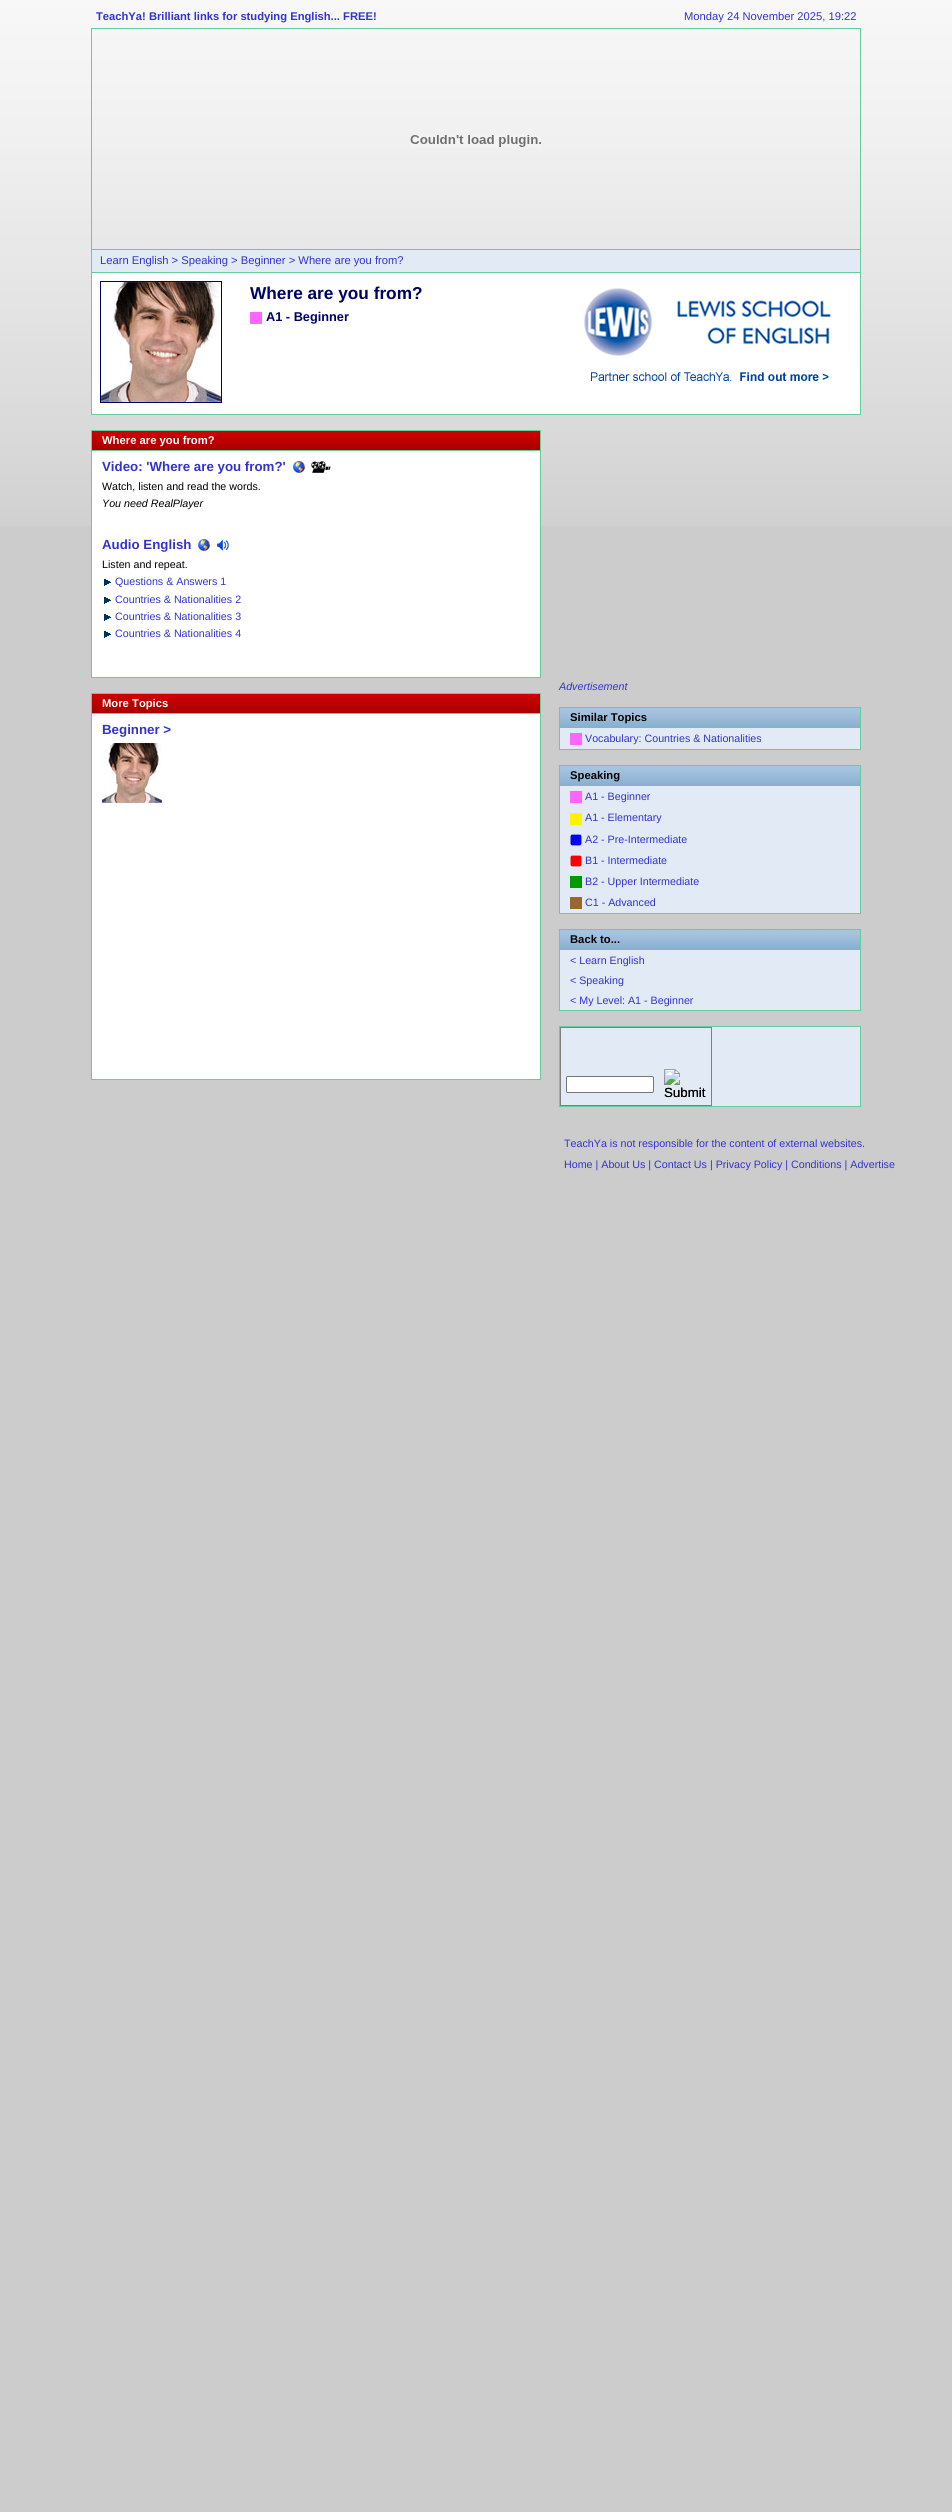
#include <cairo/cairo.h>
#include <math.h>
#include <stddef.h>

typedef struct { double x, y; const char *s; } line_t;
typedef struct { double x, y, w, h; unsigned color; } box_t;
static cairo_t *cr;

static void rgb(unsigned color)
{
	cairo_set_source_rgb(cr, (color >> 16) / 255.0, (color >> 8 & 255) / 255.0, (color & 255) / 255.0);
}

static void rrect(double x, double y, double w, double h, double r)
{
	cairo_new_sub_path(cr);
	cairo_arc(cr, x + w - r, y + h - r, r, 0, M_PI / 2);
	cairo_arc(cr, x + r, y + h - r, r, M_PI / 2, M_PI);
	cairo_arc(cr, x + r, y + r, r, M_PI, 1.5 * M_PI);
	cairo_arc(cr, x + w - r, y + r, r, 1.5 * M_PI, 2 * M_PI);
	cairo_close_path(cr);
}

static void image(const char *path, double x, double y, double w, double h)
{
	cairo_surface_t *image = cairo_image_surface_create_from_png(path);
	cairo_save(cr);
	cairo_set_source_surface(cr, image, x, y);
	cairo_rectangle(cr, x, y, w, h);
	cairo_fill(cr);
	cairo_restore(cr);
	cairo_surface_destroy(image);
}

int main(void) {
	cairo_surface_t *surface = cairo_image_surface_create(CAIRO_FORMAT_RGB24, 952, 2512);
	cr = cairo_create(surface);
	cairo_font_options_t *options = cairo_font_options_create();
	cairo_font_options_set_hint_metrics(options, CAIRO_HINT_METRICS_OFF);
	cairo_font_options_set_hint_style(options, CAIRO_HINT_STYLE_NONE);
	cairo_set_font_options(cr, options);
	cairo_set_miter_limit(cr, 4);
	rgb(0xcccccc);
	cairo_paint(cr);
	image("img/1.png", 0, 0, 952, 526);
	cairo_rectangle(cr, 91.5, 28.5, 769, 221);
	rgb(0x66cc99);
	cairo_set_line_width(cr, 1);
	cairo_stroke(cr);
	image("img/2.png", 410, 135, 131, 12);
	{
		static const box_t items[] = {
			{92, 250, 768, 22, 0xe1eaf5},
			{860, 250, 1, 165, 0x66cc99},
			{91, 414, 770, 1, 0x66cc99},
			{91, 250, 1, 165, 0x66cc99},
			{92, 273, 768, 141, 0xffffff},
			{92, 272, 768, 1, 0x66cc99},
		};
		for (size_t i = 0; i < sizeof items / sizeof *items; i++) {
			rgb(items[i].color);
			cairo_rectangle(cr, items[i].x, items[i].y, items[i].w, items[i].h);
			cairo_fill(cr);
		}
	}
	cairo_rectangle(cr, 100.5, 281.5, 121, 121);
	rgb(0x000066);
	cairo_stroke(cr);
	image("img/3.png", 101, 282, 120, 120);
	rgb(0xff66ff);
	cairo_rectangle(cr, 250, 312, 12, 12);
	cairo_fill(cr);
	image("img/4.png", 584, 288, 247, 93);
	image("img/5.png", 92, 431, 448, 19);
	cairo_rectangle(cr, 91.5, 430.5, 449, 20);
	rgb(0x66cc99);
	cairo_stroke(cr);
	{
		static const box_t items[] = {
			{92, 451, 448, 226, 0xffffff},
			{540, 451, 1, 227, 0x66cc99},
			{91, 677, 450, 1, 0x66cc99},
			{91, 451, 1, 227, 0x66cc99},
		};
		for (size_t i = 0; i < sizeof items / sizeof *items; i++) {
			rgb(items[i].color);
			cairo_rectangle(cr, items[i].x, items[i].y, items[i].w, items[i].h);
			cairo_fill(cr);
		}
	}
	image("img/6.png", 293, 461, 12, 12);
	image("img/7.png", 311, 461, 20, 12);
	image("img/6.png", 198, 539, 12, 12);
	image("img/8.png", 217, 539, 12, 12);
	image("img/9.png", 104, 579, 7, 7);
	image("img/9.png", 104, 597, 7, 7);
	image("img/9.png", 104, 614, 7, 7);
	image("img/9.png", 104, 631, 7, 7);
	image("img/5.png", 92, 694, 448, 19);
	cairo_rectangle(cr, 91.5, 693.5, 449, 20);
	cairo_stroke(cr);
	{
		static const box_t items[] = {
			{92, 714, 448, 365, 0xffffff},
			{540, 714, 1, 366, 0x66cc99},
			{91, 1079, 450, 1, 0x66cc99},
			{91, 714, 1, 366, 0x66cc99},
		};
		for (size_t i = 0; i < sizeof items / sizeof *items; i++) {
			rgb(items[i].color);
			cairo_rectangle(cr, items[i].x, items[i].y, items[i].w, items[i].h);
			cairo_fill(cr);
		}
	}
	image("img/10.png", 102, 743, 60, 60);
	image("img/11.png", 560, 708, 300, 19);
	cairo_rectangle(cr, 559.5, 707.5, 301, 20);
	cairo_stroke(cr);
	{
		static const box_t items[] = {
			{560, 728, 300, 21, 0xe1eaf5},
			{860, 728, 1, 22, 0x66cc99},
			{559, 749, 302, 1, 0x66cc99},
			{559, 728, 1, 22, 0x66cc99},
			{570, 733, 12, 12, 0xff66ff},
		};
		for (size_t i = 0; i < sizeof items / sizeof *items; i++) {
			rgb(items[i].color);
			cairo_rectangle(cr, items[i].x, items[i].y, items[i].w, items[i].h);
			cairo_fill(cr);
		}
	}
	image("img/11.png", 560, 766, 300, 19);
	cairo_rectangle(cr, 559.5, 765.5, 301, 20);
	rgb(0x66cc99);
	cairo_stroke(cr);
	{
		static const box_t items[] = {
			{560, 786, 300, 127, 0xe1eaf5},
			{860, 786, 1, 128, 0x66cc99},
			{559, 913, 302, 1, 0x66cc99},
			{559, 786, 1, 128, 0x66cc99},
			{570, 791, 12, 12, 0xff66ff},
			{570, 813, 12, 12, 0xfff200},
		};
		for (size_t i = 0; i < sizeof items / sizeof *items; i++) {
			rgb(items[i].color);
			cairo_rectangle(cr, items[i].x, items[i].y, items[i].w, items[i].h);
			cairo_fill(cr);
		}
	}
	image("img/12.png", 570, 834, 12, 12);
	image("img/13.png", 570, 855, 12, 12);
	rgb(0x009a00);
	cairo_rectangle(cr, 570, 876, 12, 12);
	cairo_fill(cr);
	rgb(0x9a6630);
	cairo_rectangle(cr, 570, 897, 12, 12);
	cairo_fill(cr);
	image("img/11.png", 560, 930, 300, 19);
	cairo_rectangle(cr, 559.5, 929.5, 301, 20);
	rgb(0x66cc99);
	cairo_stroke(cr);
	{
		static const box_t items[] = {
			{560, 950, 300, 60, 0xe1eaf5},
			{860, 950, 1, 61, 0x66cc99},
			{559, 1010, 302, 1, 0x66cc99},
			{559, 950, 1, 61, 0x66cc99},
			{559, 1026, 302, 1, 0x66cc99},
			{561, 1027, 299, 79, 0xe1eaf5},
			{860, 1027, 1, 80, 0x66cc99},
			{559, 1106, 302, 1, 0x66cc99},
			{559, 1027, 1, 80, 0x66cc99},
		};
		for (size_t i = 0; i < sizeof items / sizeof *items; i++) {
			rgb(items[i].color);
			cairo_rectangle(cr, items[i].x, items[i].y, items[i].w, items[i].h);
			cairo_fill(cr);
		}
	}
	cairo_rectangle(cr, 560.5, 1027.5, 151, 78);
	rgb(0x808080);
	cairo_stroke(cr);
	rgb(0xffffff);
	rrect(566.5, 1076.5, 87, 16, 1.5);
	cairo_fill_preserve(cr);
	rgb(0x767676);
	cairo_stroke(cr);
	image("img/14.png", 664, 1069, 42, 28);
	cairo_select_font_face(cr, "Liberation Sans", CAIRO_FONT_SLANT_NORMAL, CAIRO_FONT_WEIGHT_BOLD);
	cairo_set_font_size(cr, 11.2);
	rgb(0x3333cc);
	cairo_move_to(cr, 96, 20);
	cairo_show_text(cr, "TeachYa! Brilliant links for studying English... FREE!");
	cairo_select_font_face(cr, "Liberation Sans", CAIRO_FONT_SLANT_NORMAL, CAIRO_FONT_WEIGHT_NORMAL);
	cairo_move_to(cr, 684, 20);
	cairo_show_text(cr, "Monday 24 November 2025, 19:22");
	cairo_move_to(cr, 100, 264);
	cairo_show_text(cr, "Learn English > Speaking > Beginner > Where are you from?");
	cairo_select_font_face(cr, "Liberation Sans", CAIRO_FONT_SLANT_NORMAL, CAIRO_FONT_WEIGHT_BOLD);
	cairo_set_font_size(cr, 17.25);
	rgb(0x000066);
	cairo_move_to(cr, 250, 299);
	cairo_show_text(cr, "Where are you from?");
	cairo_set_font_size(cr, 12.75);
	cairo_move_to(cr, 266, 321);
	cairo_show_text(cr, "A1 - Beginner");
	cairo_set_font_size(cr, 11.25);
	rgb(0xffffff);
	cairo_move_to(cr, 102, 444);
	cairo_show_text(cr, "Where are you from?");
	cairo_set_font_size(cr, 13.3);
	rgb(0x3333cc);
	cairo_move_to(cr, 102, 471);
	cairo_show_text(cr, "Video: 'Where are you from?'");
	cairo_select_font_face(cr, "Liberation Sans", CAIRO_FONT_SLANT_NORMAL, CAIRO_FONT_WEIGHT_NORMAL);
	cairo_set_font_size(cr, 10.7);
	rgb(0x000000);
	cairo_move_to(cr, 102, 490);
	cairo_show_text(cr, "Watch, listen and read the words.");
	cairo_select_font_face(cr, "Liberation Sans", CAIRO_FONT_SLANT_ITALIC, CAIRO_FONT_WEIGHT_NORMAL);
	cairo_move_to(cr, 102, 507);
	cairo_show_text(cr, "You need RealPlayer");
	cairo_select_font_face(cr, "Liberation Sans", CAIRO_FONT_SLANT_NORMAL, CAIRO_FONT_WEIGHT_BOLD);
	cairo_set_font_size(cr, 13.3);
	rgb(0x3333cc);
	cairo_move_to(cr, 102, 549);
	cairo_show_text(cr, "Audio English");
	cairo_select_font_face(cr, "Liberation Sans", CAIRO_FONT_SLANT_NORMAL, CAIRO_FONT_WEIGHT_NORMAL);
	cairo_set_font_size(cr, 10.7);
	rgb(0x000000);
	cairo_move_to(cr, 102, 568);
	cairo_show_text(cr, "Listen and repeat.");
	rgb(0x3333cc);
	{
		static const line_t items[] = {
			{115, 585, "Questions & Answers 1"},
			{115, 603, "Countries & Nationalities 2"},
			{115, 620, "Countries & Nationalities 3"},
			{115, 637, "Countries & Nationalities 4"},
		};
		for (size_t i = 0; i < sizeof items / sizeof *items; i++) {
			cairo_move_to(cr, items[i].x, items[i].y);
			cairo_show_text(cr, items[i].s);
		}
	}
	cairo_select_font_face(cr, "Liberation Sans", CAIRO_FONT_SLANT_NORMAL, CAIRO_FONT_WEIGHT_BOLD);
	cairo_set_font_size(cr, 11.25);
	rgb(0xffffff);
	cairo_move_to(cr, 102, 707);
	cairo_show_text(cr, "More Topics");
	cairo_set_font_size(cr, 13.3);
	rgb(0x3333cc);
	cairo_move_to(cr, 102, 734);
	cairo_show_text(cr, "Beginner >");
	cairo_select_font_face(cr, "Liberation Sans", CAIRO_FONT_SLANT_ITALIC, CAIRO_FONT_WEIGHT_NORMAL);
	cairo_set_font_size(cr, 10.7);
	cairo_move_to(cr, 559, 690);
	cairo_show_text(cr, "Advertisement");
	cairo_select_font_face(cr, "Liberation Sans", CAIRO_FONT_SLANT_NORMAL, CAIRO_FONT_WEIGHT_BOLD);
	cairo_set_font_size(cr, 11.25);
	rgb(0x000000);
	cairo_move_to(cr, 570, 721);
	cairo_show_text(cr, "Similar Topics");
	cairo_select_font_face(cr, "Liberation Sans", CAIRO_FONT_SLANT_NORMAL, CAIRO_FONT_WEIGHT_NORMAL);
	cairo_set_font_size(cr, 10.7);
	rgb(0x3333cc);
	cairo_move_to(cr, 585, 742);
	cairo_show_text(cr, "Vocabulary: Countries & Nationalities");
	cairo_select_font_face(cr, "Liberation Sans", CAIRO_FONT_SLANT_NORMAL, CAIRO_FONT_WEIGHT_BOLD);
	cairo_set_font_size(cr, 11.25);
	rgb(0x000000);
	cairo_move_to(cr, 570, 779);
	cairo_show_text(cr, "Speaking");
	cairo_select_font_face(cr, "Liberation Sans", CAIRO_FONT_SLANT_NORMAL, CAIRO_FONT_WEIGHT_NORMAL);
	cairo_set_font_size(cr, 10.7);
	rgb(0x3333cc);
	{
		static const line_t items[] = {
			{585, 800, "A1 - Beginner"},
			{585, 821, "A1 - Elementary"},
			{585, 843, "A2 - Pre-Intermediate"},
			{585, 864, "B1 - Intermediate"},
			{585, 885, "B2 - Upper Intermediate"},
			{585, 906, "C1 - Advanced"},
		};
		for (size_t i = 0; i < sizeof items / sizeof *items; i++) {
			cairo_move_to(cr, items[i].x, items[i].y);
			cairo_show_text(cr, items[i].s);
		}
	}
	cairo_select_font_face(cr, "Liberation Sans", CAIRO_FONT_SLANT_NORMAL, CAIRO_FONT_WEIGHT_BOLD);
	cairo_set_font_size(cr, 11.25);
	rgb(0x000000);
	cairo_move_to(cr, 570, 943);
	cairo_show_text(cr, "Back to...");
	cairo_select_font_face(cr, "Liberation Sans", CAIRO_FONT_SLANT_NORMAL, CAIRO_FONT_WEIGHT_NORMAL);
	cairo_set_font_size(cr, 10.7);
	rgb(0x3333cc);
	{
		static const line_t items[] = {
			{570, 964, "< Learn English"},
			{570, 984, "< Speaking"},
			{570, 1004, "< My Level: A1 - Beginner"},
		};
		for (size_t i = 0; i < sizeof items / sizeof *items; i++) {
			cairo_move_to(cr, items[i].x, items[i].y);
			cairo_show_text(cr, items[i].s);
		}
	}
	cairo_set_font_size(cr, 13.3);
	rgb(0x000000);
	cairo_move_to(cr, 664, 1097);
	cairo_show_text(cr, "Submit");
	cairo_set_font_size(cr, 10.7);
	rgb(0x3333cc);
	cairo_move_to(cr, 564, 1147);
	cairo_show_text(cr, "TeachYa is not responsible for the content of external websites.");
	cairo_move_to(cr, 564, 1168);
	cairo_show_text(cr, "Home | About Us | Contact Us | Privacy Policy | Conditions | Advertise");
	cairo_surface_write_to_png(surface, "page.png");
	cairo_font_options_destroy(options);
	cairo_destroy(cr);
	cairo_surface_destroy(surface);
	return 0;
}
